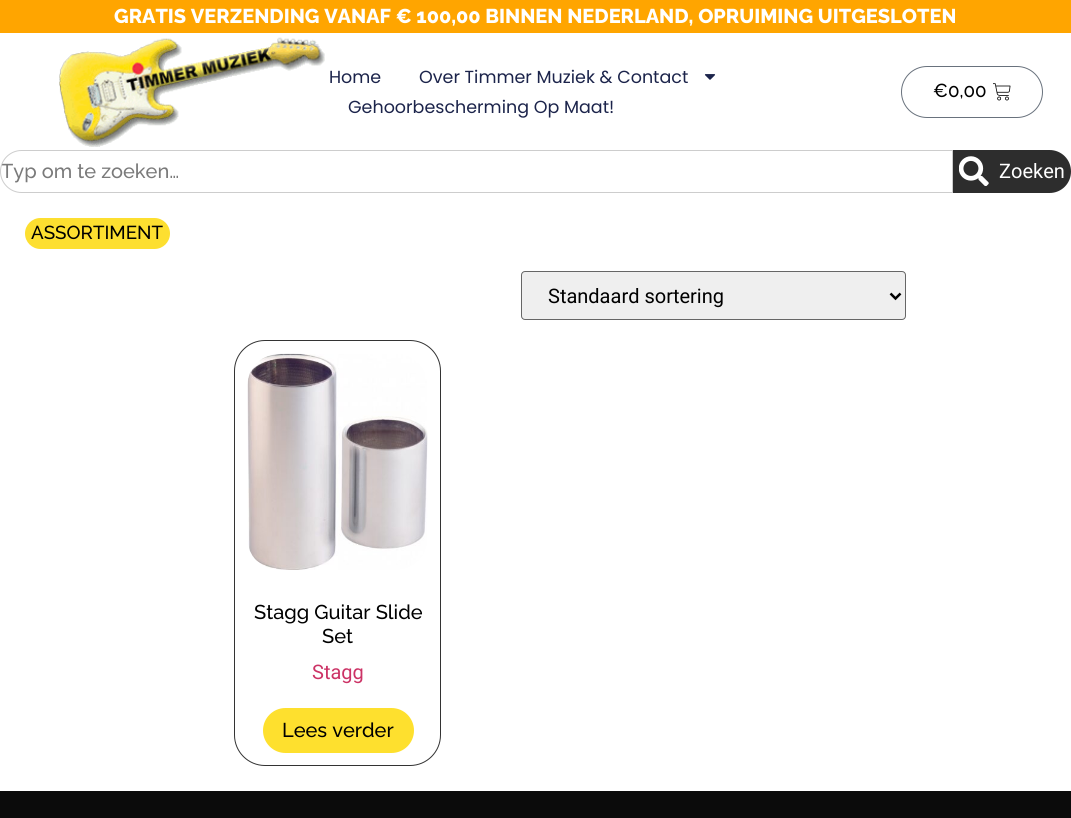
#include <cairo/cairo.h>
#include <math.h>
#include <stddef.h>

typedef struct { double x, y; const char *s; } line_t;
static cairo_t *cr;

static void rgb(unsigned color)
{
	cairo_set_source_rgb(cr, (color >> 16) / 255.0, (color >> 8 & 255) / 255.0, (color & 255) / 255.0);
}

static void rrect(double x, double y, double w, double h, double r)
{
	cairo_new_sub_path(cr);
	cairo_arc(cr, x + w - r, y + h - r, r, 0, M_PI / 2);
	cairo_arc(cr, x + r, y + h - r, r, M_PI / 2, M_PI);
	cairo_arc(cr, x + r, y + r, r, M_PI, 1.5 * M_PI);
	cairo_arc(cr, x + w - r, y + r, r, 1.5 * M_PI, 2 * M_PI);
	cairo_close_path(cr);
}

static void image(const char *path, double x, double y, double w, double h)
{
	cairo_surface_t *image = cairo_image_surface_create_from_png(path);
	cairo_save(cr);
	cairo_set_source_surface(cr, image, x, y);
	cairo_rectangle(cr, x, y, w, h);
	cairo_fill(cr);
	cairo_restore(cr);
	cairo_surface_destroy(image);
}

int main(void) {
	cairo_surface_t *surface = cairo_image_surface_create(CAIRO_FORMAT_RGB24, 1071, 818);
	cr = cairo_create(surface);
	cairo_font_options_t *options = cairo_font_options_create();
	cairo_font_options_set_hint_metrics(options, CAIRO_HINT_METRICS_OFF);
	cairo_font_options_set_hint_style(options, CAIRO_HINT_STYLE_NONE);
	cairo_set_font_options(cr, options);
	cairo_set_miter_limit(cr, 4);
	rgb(0xffffff);
	cairo_paint(cr);
	rgb(0xffa500);
	cairo_rectangle(cr, 0, 0, 1071, 33);
	cairo_fill(cr);
	image("img/1.png", 59, 37, 266, 110);
	image("img/2.png", 704, 74, 12, 6);
	rrect(901.5, 66.5, 141, 51, 25.5);
	rgb(0x69727d);
	cairo_set_line_width(cr, 1);
	cairo_stroke(cr);
	image("img/3.png", 993, 83, 18, 18);
	cairo_new_path(cr);
	cairo_move_to(cr, 21.5, 150.5);
	cairo_line_to(cr, 952.5, 150.5);
	cairo_line_to(cr, 952.5, 192.5);
	cairo_line_to(cr, 21.5, 192.5);
	cairo_curve_to(cr, 10, 192.5, 0.5, 183, 0.5, 171.5);
	cairo_curve_to(cr, 0.5, 160, 10, 150.5, 21.5, 150.5);
	cairo_close_path(cr);
	rgb(0xcdcdcd);
	cairo_stroke(cr);
	rgb(0x2d2d2d);
	cairo_new_path(cr);
	cairo_move_to(cr, 953, 150);
	cairo_line_to(cr, 1049.5, 150);
	cairo_curve_to(cr, 1061.5, 150, 1071, 159.5, 1071, 171.5);
	cairo_curve_to(cr, 1071, 183.5, 1061.5, 193, 1049.5, 193);
	cairo_line_to(cr, 953, 193);
	cairo_close_path(cr);
	cairo_fill(cr);
	image("img/4.png", 959, 156, 30, 30);
	rgb(0xfddf30);
	rrect(25, 218, 145, 31, 15.5);
	cairo_fill(cr);
	rgb(0xefefef);
	rrect(521.5, 271.5, 384, 48, 3.5);
	cairo_fill_preserve(cr);
	rgb(0x666666);
	cairo_stroke(cr);
	cairo_new_path(cr);
	cairo_move_to(cr, 890.5, 293.5);
	cairo_line_to(cr, 895.5, 298.5);
	cairo_line_to(cr, 900.5, 293.5);
	rgb(0x000000);
	cairo_set_line_width(cr, 2.5);
	cairo_stroke(cr);
	rrect(234.5, 340.5, 206, 425, 30.5);
	rgb(0x333333);
	cairo_set_line_width(cr, 1);
	cairo_stroke(cr);
	image("img/5.png", 247, 353, 181, 217);
	rgb(0xfee02e);
	rrect(263, 708, 151, 45, 22.5);
	cairo_fill(cr);
	rgb(0x0b0b0b);
	cairo_rectangle(cr, 0, 791, 1071, 27);
	cairo_fill(cr);
	cairo_select_font_face(cr, "Raleway ExtraBold", CAIRO_FONT_SLANT_NORMAL, CAIRO_FONT_WEIGHT_NORMAL);
	cairo_set_font_size(cr, 20);
	rgb(0xffffff);
	cairo_move_to(cr, 114, 23);
	cairo_show_text(cr, "GRATIS VERZENDING VANAF € 100,00 BINNEN NEDERLAND, OPRUIMING UITGESLOTEN");
	cairo_select_font_face(cr, "Poppins", CAIRO_FONT_SLANT_NORMAL, CAIRO_FONT_WEIGHT_NORMAL);
	cairo_set_font_size(cr, 17.5);
	rgb(0x1c244b);
	{
		static const line_t items[] = {
			{329, 83, "Home"},
			{419, 83, "Over Timmer Muziek & Contact"},
			{348, 113, "Gehoorbescherming Op Maat!"},
		};
		for (size_t i = 0; i < sizeof items / sizeof *items; i++) {
			cairo_move_to(cr, items[i].x, items[i].y);
			cairo_show_text(cr, items[i].s);
		}
	}
	cairo_select_font_face(cr, "Raleway Medium", CAIRO_FONT_SLANT_NORMAL, CAIRO_FONT_WEIGHT_NORMAL);
	cairo_set_font_size(cr, 18.75);
	rgb(0x000000);
	cairo_move_to(cr, 933, 97);
	cairo_show_text(cr, "€0,00");
	cairo_save(cr);
	cairo_new_path(cr);
	cairo_move_to(cr, 21, 151);
	cairo_line_to(cr, 951, 151);
	cairo_line_to(cr, 951, 191);
	cairo_line_to(cr, 21, 191);
	cairo_curve_to(cr, 10, 191, 1, 182, 1, 171);
	cairo_curve_to(cr, 1, 160, 10, 151, 21, 151);
	cairo_close_path(cr);
	cairo_clip(cr);
	cairo_set_font_size(cr, 20);
	rgb(0x7a7a7a);
	cairo_move_to(cr, 1, 178);
	cairo_show_text(cr, "Typ om te zoeken…");
	cairo_restore(cr);
	cairo_select_font_face(cr, "Roboto", CAIRO_FONT_SLANT_NORMAL, CAIRO_FONT_WEIGHT_NORMAL);
	cairo_set_font_size(cr, 20);
	rgb(0xffffff);
	cairo_move_to(cr, 999, 178);
	cairo_show_text(cr, "Zoeken");
	cairo_select_font_face(cr, "Raleway Medium", CAIRO_FONT_SLANT_NORMAL, CAIRO_FONT_WEIGHT_NORMAL);
	cairo_set_font_size(cr, 18.75);
	rgb(0x000000);
	cairo_move_to(cr, 31, 239);
	cairo_show_text(cr, "ASSORTIMENT");
	cairo_select_font_face(cr, "Roboto", CAIRO_FONT_SLANT_NORMAL, CAIRO_FONT_WEIGHT_NORMAL);
	cairo_set_font_size(cr, 20);
	cairo_move_to(cr, 548, 303);
	cairo_show_text(cr, "Standaard sortering");
	cairo_select_font_face(cr, "Raleway Medium", CAIRO_FONT_SLANT_NORMAL, CAIRO_FONT_WEIGHT_NORMAL);
	cairo_move_to(cr, 254, 619);
	cairo_show_text(cr, "Stagg Guitar Slide");
	cairo_move_to(cr, 322, 643);
	cairo_show_text(cr, "Set");
	cairo_select_font_face(cr, "Roboto", CAIRO_FONT_SLANT_NORMAL, CAIRO_FONT_WEIGHT_NORMAL);
	rgb(0xcc3366);
	cairo_move_to(cr, 312, 679);
	cairo_show_text(cr, "Stagg");
	cairo_select_font_face(cr, "Raleway Medium", CAIRO_FONT_SLANT_NORMAL, CAIRO_FONT_WEIGHT_NORMAL);
	rgb(0x000000);
	cairo_move_to(cr, 282, 737);
	cairo_show_text(cr, "Lees verder");
	cairo_surface_write_to_png(surface, "page.png");
	cairo_font_options_destroy(options);
	cairo_destroy(cr);
	cairo_surface_destroy(surface);
	return 0;
}
